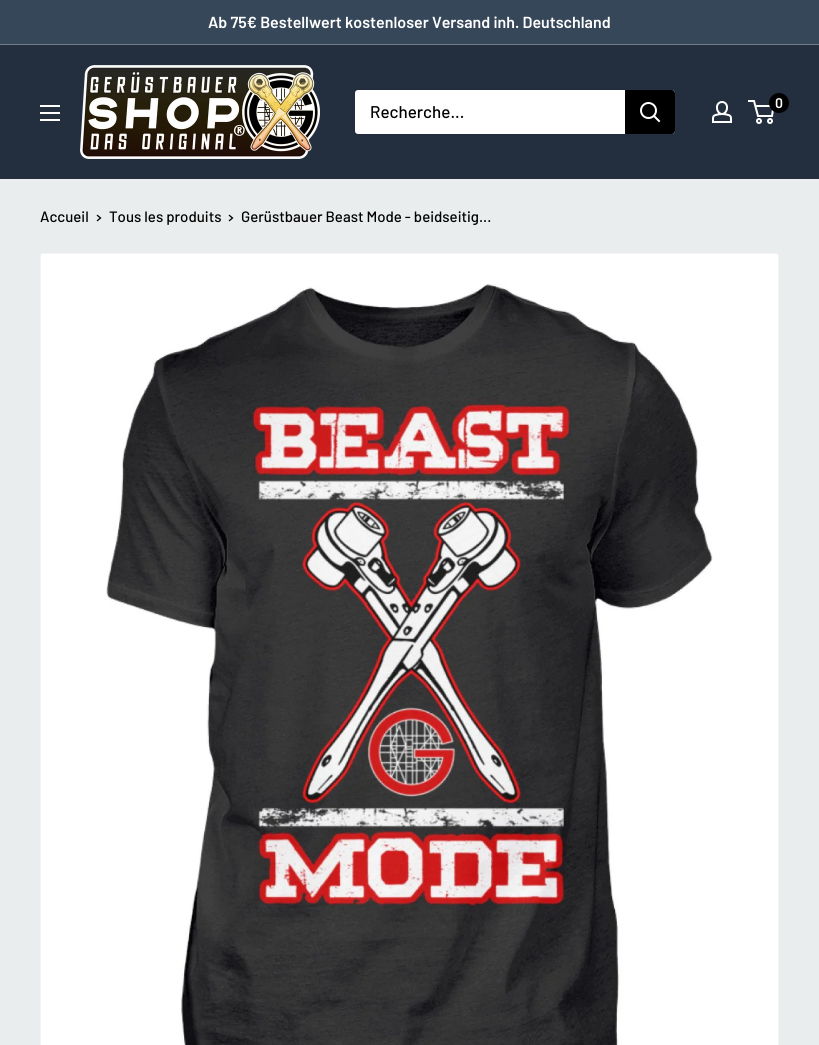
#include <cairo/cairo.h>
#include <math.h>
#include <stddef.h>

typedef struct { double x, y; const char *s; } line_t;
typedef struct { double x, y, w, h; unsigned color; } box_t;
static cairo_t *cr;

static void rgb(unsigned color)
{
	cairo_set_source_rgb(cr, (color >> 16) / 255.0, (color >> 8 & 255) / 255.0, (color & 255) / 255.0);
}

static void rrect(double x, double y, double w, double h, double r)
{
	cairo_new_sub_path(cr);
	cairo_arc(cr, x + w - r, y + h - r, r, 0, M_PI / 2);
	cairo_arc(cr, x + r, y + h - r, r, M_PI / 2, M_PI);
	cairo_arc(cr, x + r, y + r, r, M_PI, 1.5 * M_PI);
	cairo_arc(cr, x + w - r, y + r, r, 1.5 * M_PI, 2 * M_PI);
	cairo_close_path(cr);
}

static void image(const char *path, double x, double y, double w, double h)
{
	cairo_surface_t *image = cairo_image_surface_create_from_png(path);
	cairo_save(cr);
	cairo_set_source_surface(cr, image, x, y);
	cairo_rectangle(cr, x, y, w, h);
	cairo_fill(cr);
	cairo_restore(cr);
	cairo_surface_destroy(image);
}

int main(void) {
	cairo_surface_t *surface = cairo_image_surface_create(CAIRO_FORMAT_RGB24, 819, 1045);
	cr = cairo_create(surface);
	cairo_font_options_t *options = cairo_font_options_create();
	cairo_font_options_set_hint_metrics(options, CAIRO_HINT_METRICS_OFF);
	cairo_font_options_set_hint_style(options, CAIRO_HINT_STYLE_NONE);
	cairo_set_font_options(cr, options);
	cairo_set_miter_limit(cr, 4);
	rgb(0xeaeded);
	cairo_paint(cr);
	{
		static const box_t items[] = {
			{0, 0, 819, 44, 0x37475a},
			{0, 44, 819, 1, 0x737e8c},
			{0, 45, 819, 134, 0x232f3e},
		};
		for (size_t i = 0; i < sizeof items / sizeof *items; i++) {
			rgb(items[i].color);
			cairo_rectangle(cr, items[i].x, items[i].y, items[i].w, items[i].h);
			cairo_fill(cr);
		}
	}
	image("img/1.png", 80, 65, 240, 94);
	image("img/2.png", 712, 101, 20, 22);
	cairo_arc(cr, 759, 121, 2, 0, 2 * M_PI);
	rgb(0xffffff);
	cairo_stroke(cr);
	cairo_arc(cr, 770, 121, 2, 0, 2 * M_PI);
	cairo_stroke(cr);
	cairo_new_path(cr);
	cairo_move_to(cr, 755.5, 106);
	cairo_line_to(cr, 773.5, 106);
	cairo_line_to(cr, 772, 116);
	cairo_line_to(cr, 758, 116);
	cairo_line_to(cr, 754, 101);
	cairo_line_to(cr, 748, 101);
	cairo_stroke(cr);
	rgb(0x000000);
	cairo_arc(cr, 779, 103, 10, 0, 2 * M_PI);
	cairo_fill(cr);
	image("img/3.png", 40, 105, 20, 16);
	rgb(0xffffff);
	rrect(355, 90, 320, 44, 3);
	cairo_fill(cr);
	rgb(0x000000);
	cairo_new_path(cr);
	cairo_move_to(cr, 625, 90);
	cairo_line_to(cr, 672, 90);
	cairo_curve_to(cr, 673.5, 90, 675, 91.5, 675, 93);
	cairo_line_to(cr, 675, 131);
	cairo_curve_to(cr, 675, 132.5, 673.5, 134, 672, 134);
	cairo_line_to(cr, 625, 134);
	cairo_close_path(cr);
	cairo_fill(cr);
	cairo_new_path(cr);
	cairo_move_to(cr, 659, 121);
	cairo_line_to(cr, 654, 116);
	rgb(0xffffff);
	cairo_set_line_cap(cr, CAIRO_LINE_CAP_SQUARE);
	cairo_stroke(cr);
	cairo_arc(cr, 648.5, 110.5, 7.5, 0, 2 * M_PI);
	cairo_set_line_cap(cr, CAIRO_LINE_CAP_BUTT);
	cairo_stroke(cr);
	cairo_new_path(cr);
	cairo_move_to(cr, 97.5, 215.5);
	cairo_line_to(cr, 100.5, 218);
	cairo_line_to(cr, 97.5, 220.5);
	rgb(0x000000);
	cairo_set_line_width(cr, 1.3);
	cairo_set_line_cap(cr, CAIRO_LINE_CAP_SQUARE);
	cairo_stroke(cr);
	cairo_new_path(cr);
	cairo_move_to(cr, 229.5, 215.5);
	cairo_line_to(cr, 232.5, 218);
	cairo_line_to(cr, 229.5, 220.5);
	cairo_stroke(cr);
	rgb(0xffffff);
	rrect(40.5, 253.5, 738, 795, 2.5);
	cairo_fill_preserve(cr);
	rgb(0xf4f4f4);
	cairo_set_line_width(cr, 1);
	cairo_set_line_cap(cr, CAIRO_LINE_CAP_BUTT);
	cairo_stroke(cr);
	image("img/4.png", 106, 284, 607, 761);
	cairo_select_font_face(cr, "Barlow SemiBold", CAIRO_FONT_SLANT_NORMAL, CAIRO_FONT_WEIGHT_NORMAL);
	cairo_set_font_size(cr, 16);
	rgb(0xffffff);
	cairo_move_to(cr, 208, 28);
	cairo_show_text(cr, "Ab 75€ Bestellwert kostenloser Versand inh. Deutschland");
	cairo_set_font_size(cr, 14);
	cairo_move_to(cr, 775, 108);
	cairo_show_text(cr, "0");
	cairo_select_font_face(cr, "Barlow Medium", CAIRO_FONT_SLANT_NORMAL, CAIRO_FONT_WEIGHT_NORMAL);
	cairo_set_font_size(cr, 17);
	rgb(0x000000);
	cairo_move_to(cr, 370, 118);
	cairo_show_text(cr, "Recherche...");
	cairo_set_font_size(cr, 15);
	{
		static const line_t items[] = {
			{40, 222, "Accueil"},
			{109, 222, "Tous les produits"},
			{241, 222, "Gerüstbauer Beast Mode - beidseitig..."},
		};
		for (size_t i = 0; i < sizeof items / sizeof *items; i++) {
			cairo_move_to(cr, items[i].x, items[i].y);
			cairo_show_text(cr, items[i].s);
		}
	}
	cairo_surface_write_to_png(surface, "page.png");
	cairo_font_options_destroy(options);
	cairo_destroy(cr);
	cairo_surface_destroy(surface);
	return 0;
}
